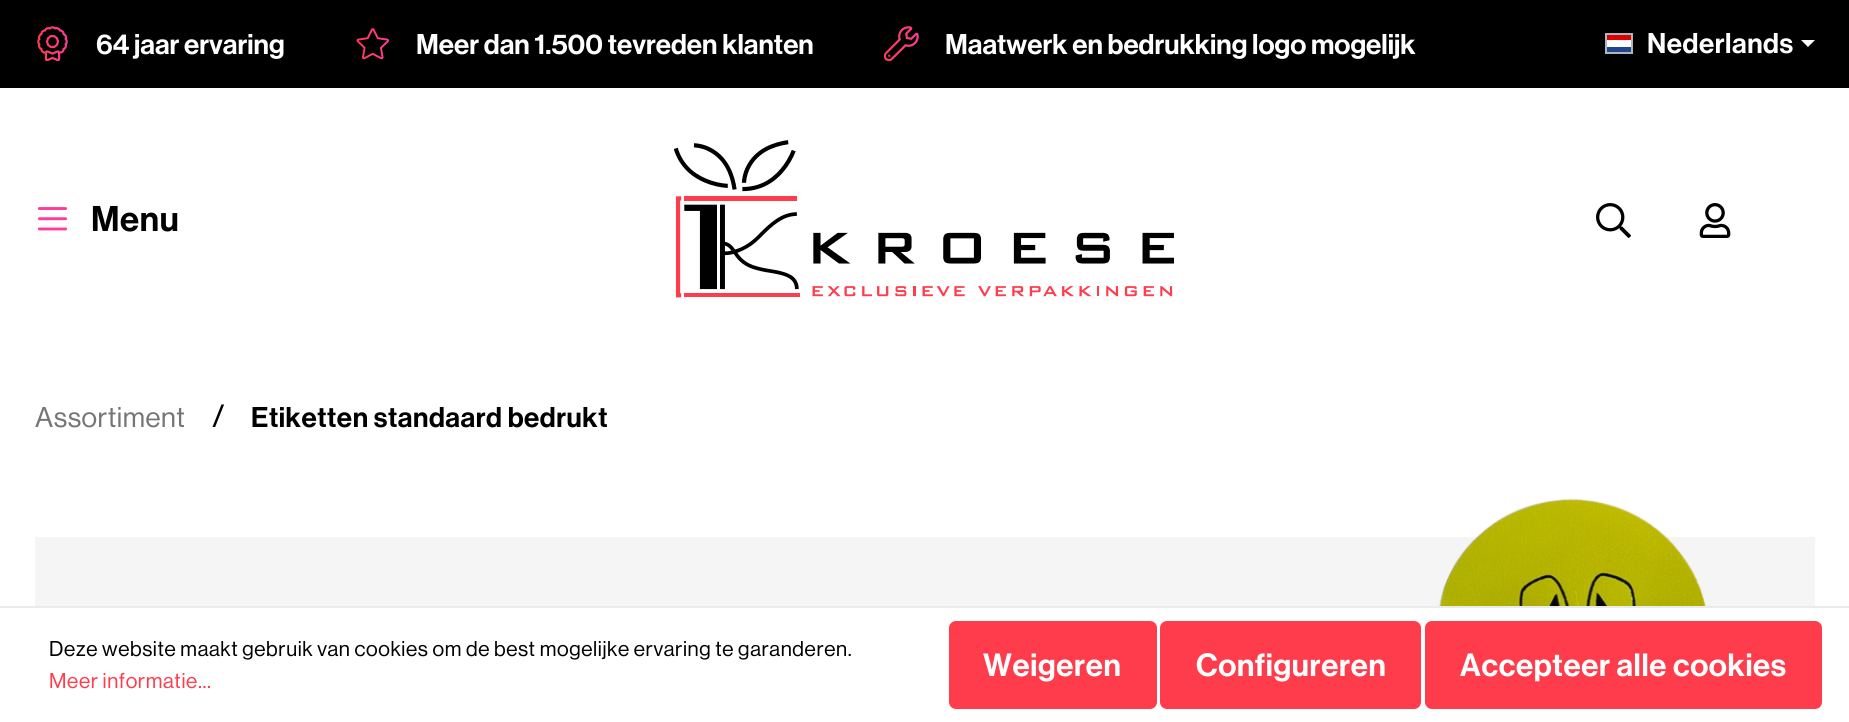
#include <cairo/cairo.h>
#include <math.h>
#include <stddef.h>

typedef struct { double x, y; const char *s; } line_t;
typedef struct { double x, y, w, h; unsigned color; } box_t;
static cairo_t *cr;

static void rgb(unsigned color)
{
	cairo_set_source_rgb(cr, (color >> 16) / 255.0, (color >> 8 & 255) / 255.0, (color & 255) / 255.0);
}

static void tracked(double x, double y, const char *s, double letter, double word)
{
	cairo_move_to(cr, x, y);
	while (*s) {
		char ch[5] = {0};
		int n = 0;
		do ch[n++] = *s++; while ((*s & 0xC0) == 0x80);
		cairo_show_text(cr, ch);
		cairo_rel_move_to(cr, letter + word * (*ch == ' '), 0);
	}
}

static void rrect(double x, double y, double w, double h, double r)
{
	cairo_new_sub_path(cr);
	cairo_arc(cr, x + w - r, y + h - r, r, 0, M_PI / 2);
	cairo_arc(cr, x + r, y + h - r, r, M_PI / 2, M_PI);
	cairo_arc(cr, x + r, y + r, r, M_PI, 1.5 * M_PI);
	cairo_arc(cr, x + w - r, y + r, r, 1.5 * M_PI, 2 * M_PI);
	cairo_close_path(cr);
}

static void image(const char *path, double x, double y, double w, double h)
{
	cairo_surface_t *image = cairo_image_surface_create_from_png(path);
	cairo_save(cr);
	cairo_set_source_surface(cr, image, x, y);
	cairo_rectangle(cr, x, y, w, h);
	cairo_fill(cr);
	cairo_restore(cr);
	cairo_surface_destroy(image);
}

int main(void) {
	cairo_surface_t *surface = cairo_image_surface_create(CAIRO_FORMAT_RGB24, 1849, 722);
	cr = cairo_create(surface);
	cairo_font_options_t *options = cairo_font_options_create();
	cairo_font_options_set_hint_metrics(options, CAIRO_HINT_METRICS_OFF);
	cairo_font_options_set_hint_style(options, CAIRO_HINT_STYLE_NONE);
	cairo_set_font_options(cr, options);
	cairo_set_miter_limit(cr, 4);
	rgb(0xffffff);
	cairo_paint(cr);
	rgb(0x000000);
	cairo_rectangle(cr, 0, 0, 1849, 88);
	cairo_fill(cr);
	image("img/1.png", 37, 26, 31, 35);
	image("img/2.png", 356, 28, 33, 32);
	image("img/3.png", 884, 26, 35, 35);
	{
		static const box_t items[] = {
			{1607, 35, 24, 5, 0xdd0000},
			{1607, 40, 24, 7, 0xffffff},
			{1607, 47, 24, 5, 0x21468b},
		};
		for (size_t i = 0; i < sizeof items / sizeof *items; i++) {
			rgb(items[i].color);
			cairo_rectangle(cr, items[i].x, items[i].y, items[i].w, items[i].h);
			cairo_fill(cr);
		}
	}
	cairo_rectangle(cr, 1606, 34, 26, 19);
	rgb(0xadb5bd);
	cairo_stroke(cr);
	rgb(0xffffff);
	cairo_new_path(cr);
	cairo_move_to(cr, 1801, 40);
	cairo_line_to(cr, 1815, 40);
	cairo_line_to(cr, 1808, 47);
	cairo_close_path(cr);
	cairo_fill(cr);
	image("img/4.png", 37, 207, 31, 24);
	image("img/5.png", 674, 140, 500, 158);
	image("img/6.png", 1596, 203, 35, 35);
	image("img/7.png", 1699, 203, 32, 35);
	rgb(0xf5f5f5);
	cairo_rectangle(cr, 35, 537, 1780, 69);
	cairo_fill(cr);
	image("img/8.png", 1439, 498, 267, 108);
	rgb(0xebebeb);
	cairo_rectangle(cr, 0, 606, 1849, 2);
	cairo_fill(cr);
	rgb(0xff3c4b);
	rrect(950, 622, 206, 86, 6);
	cairo_fill_preserve(cr);
	cairo_stroke(cr);
	rrect(1161, 622, 259, 86, 6);
	cairo_fill_preserve(cr);
	cairo_stroke(cr);
	rrect(1426, 622, 395, 86, 6);
	cairo_fill_preserve(cr);
	cairo_stroke(cr);
	cairo_select_font_face(cr, "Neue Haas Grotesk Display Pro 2 Medium", CAIRO_FONT_SLANT_NORMAL, CAIRO_FONT_WEIGHT_NORMAL);
	cairo_set_font_size(cr, 28);
	rgb(0xffffff);
	{
		static const line_t items[] = {
			{96, 54, "64 jaar ervaring"},
			{416, 54, "Meer dan 1.500 tevreden klanten"},
			{945, 54, "Maatwerk en bedrukking logo mogelijk"},
		};
		for (size_t i = 0; i < sizeof items / sizeof *items; i++) {
			cairo_move_to(cr, items[i].x, items[i].y);
			cairo_show_text(cr, items[i].s);
		}
	}
	tracked(1647, 53, "Nederlands", 0.55, 0);
	cairo_set_font_size(cr, 35);
	rgb(0x000000);
	tracked(91, 231, "Menu", 0.63, 0);
	cairo_select_font_face(cr, "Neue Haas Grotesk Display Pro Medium", CAIRO_FONT_SLANT_NORMAL, CAIRO_FONT_WEIGHT_NORMAL);
	cairo_set_font_size(cr, 28);
	rgb(0x777474);
	tracked(35, 427, "Assortiment", 0.55, 0);
	cairo_set_font_size(cr, 31.5);
	rgb(0x000000);
	tracked(212, 427, "/", 0.63, 0);
	cairo_select_font_face(cr, "Neue Haas Grotesk Display Pro 2 Medium", CAIRO_FONT_SLANT_NORMAL, CAIRO_FONT_WEIGHT_NORMAL);
	cairo_set_font_size(cr, 28);
	tracked(251, 427, "Etiketten standaard bedrukt", 0.55, 0);
	cairo_select_font_face(cr, "Neue Haas Grotesk Display Pro Medium", CAIRO_FONT_SLANT_NORMAL, CAIRO_FONT_WEIGHT_NORMAL);
	cairo_set_font_size(cr, 21);
	tracked(49, 656, "Deze website maakt gebruik van cookies om de best mogelijke ervaring te garanderen.", 0.63, 0);
	rgb(0xff3c4b);
	tracked(49, 688, "Meer informatie...", 0.63, 0);
	cairo_select_font_face(cr, "Neue Haas Grotesk Display Pro 2 Medium", CAIRO_FONT_SLANT_NORMAL, CAIRO_FONT_WEIGHT_NORMAL);
	cairo_set_font_size(cr, 31.5);
	rgb(0xffffff);
	{
		static const line_t items[] = {
			{983, 676, "Weigeren"},
			{1196, 676, "Configureren"},
			{1460, 676, "Accepteer alle cookies"},
		};
		for (size_t i = 0; i < sizeof items / sizeof *items; i++) {
			tracked(items[i].x, items[i].y, items[i].s, 0.63, 0);
		}
	}
	cairo_surface_write_to_png(surface, "page.png");
	cairo_font_options_destroy(options);
	cairo_destroy(cr);
	cairo_surface_destroy(surface);
	return 0;
}
